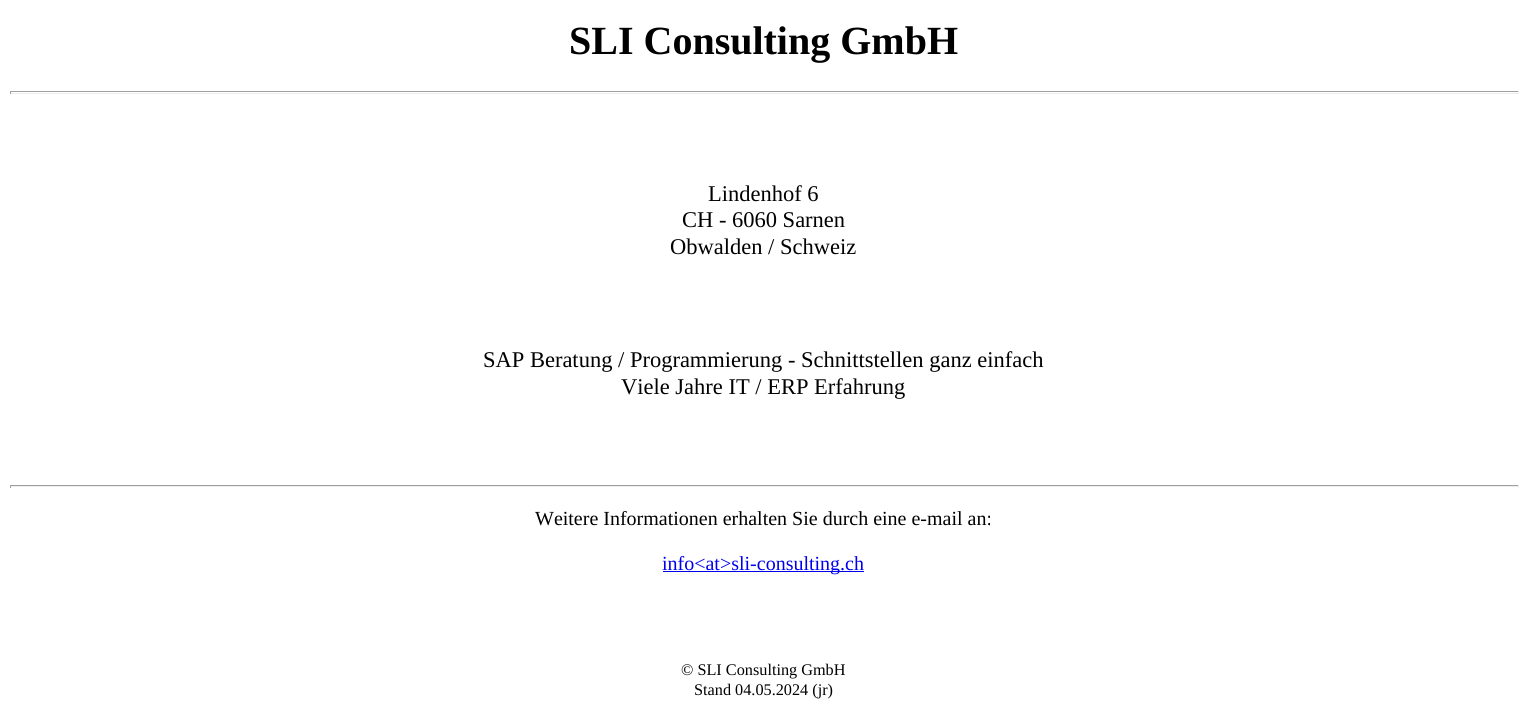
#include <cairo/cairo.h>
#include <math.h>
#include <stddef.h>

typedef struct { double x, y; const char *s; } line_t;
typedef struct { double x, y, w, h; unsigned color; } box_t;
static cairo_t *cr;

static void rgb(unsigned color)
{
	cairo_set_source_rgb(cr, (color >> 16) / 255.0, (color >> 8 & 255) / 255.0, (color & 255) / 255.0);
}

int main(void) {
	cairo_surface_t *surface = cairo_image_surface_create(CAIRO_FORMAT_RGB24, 1526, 709);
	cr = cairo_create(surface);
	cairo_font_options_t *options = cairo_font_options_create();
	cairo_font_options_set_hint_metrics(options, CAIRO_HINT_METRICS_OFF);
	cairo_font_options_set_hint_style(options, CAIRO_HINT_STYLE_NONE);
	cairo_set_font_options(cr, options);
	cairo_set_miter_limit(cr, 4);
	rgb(0xffffff);
	cairo_paint(cr);
	{
		static const box_t items[] = {
			{10, 91, 1509, 1, 0x9f9f9f},
			{1518, 91, 1, 3, 0xeeeeee},
			{10, 93, 1509, 1, 0xeeeeee},
			{10, 91, 1, 3, 0x9f9f9f},
			{10, 485, 1509, 1, 0x9f9f9f},
			{1518, 485, 1, 3, 0xeeeeee},
			{10, 486, 1509, 1, 0xeeeeee},
			{10, 485, 1, 3, 0x9f9f9f},
			{663, 571, 201, 1, 0x0000ee},
		};
		for (size_t i = 0; i < sizeof items / sizeof *items; i++) {
			rgb(items[i].color);
			cairo_rectangle(cr, items[i].x, items[i].y, items[i].w, items[i].h);
			cairo_fill(cr);
		}
	}
	cairo_select_font_face(cr, "Liberation Serif", CAIRO_FONT_SLANT_NORMAL, CAIRO_FONT_WEIGHT_BOLD);
	cairo_set_font_size(cr, 40);
	rgb(0x000000);
	cairo_move_to(cr, 569, 54);
	cairo_show_text(cr, "SLI Consulting GmbH");
	cairo_select_font_face(cr, "Liberation Serif", CAIRO_FONT_SLANT_NORMAL, CAIRO_FONT_WEIGHT_NORMAL);
	cairo_set_font_size(cr, 22.5);
	{
		static const line_t items[] = {
			{708, 201, "Lindenhof 6"},
			{682, 227, "CH - 6060 Sarnen"},
			{670, 254, "Obwalden / Schweiz"},
			{483, 367, "SAP Beratung / Programmierung - Schnittstellen ganz einfach"},
			{621, 394, "Viele Jahre IT / ERP Erfahrung"},
		};
		for (size_t i = 0; i < sizeof items / sizeof *items; i++) {
			cairo_move_to(cr, items[i].x, items[i].y);
			cairo_show_text(cr, items[i].s);
		}
	}
	cairo_set_font_size(cr, 20);
	cairo_move_to(cr, 535, 525);
	cairo_show_text(cr, "Weitere Informationen erhalten Sie durch eine e-mail an:");
	rgb(0x0000ee);
	cairo_move_to(cr, 662, 570);
	cairo_show_text(cr, "info<at>sli-consulting.ch");
	cairo_set_font_size(cr, 16.25);
	rgb(0x000000);
	cairo_move_to(cr, 681, 675);
	cairo_show_text(cr, "© SLI Consulting GmbH");
	cairo_move_to(cr, 694, 695);
	cairo_show_text(cr, "Stand 04.05.2024 (jr)");
	cairo_surface_write_to_png(surface, "page.png");
	cairo_font_options_destroy(options);
	cairo_destroy(cr);
	cairo_surface_destroy(surface);
	return 0;
}
